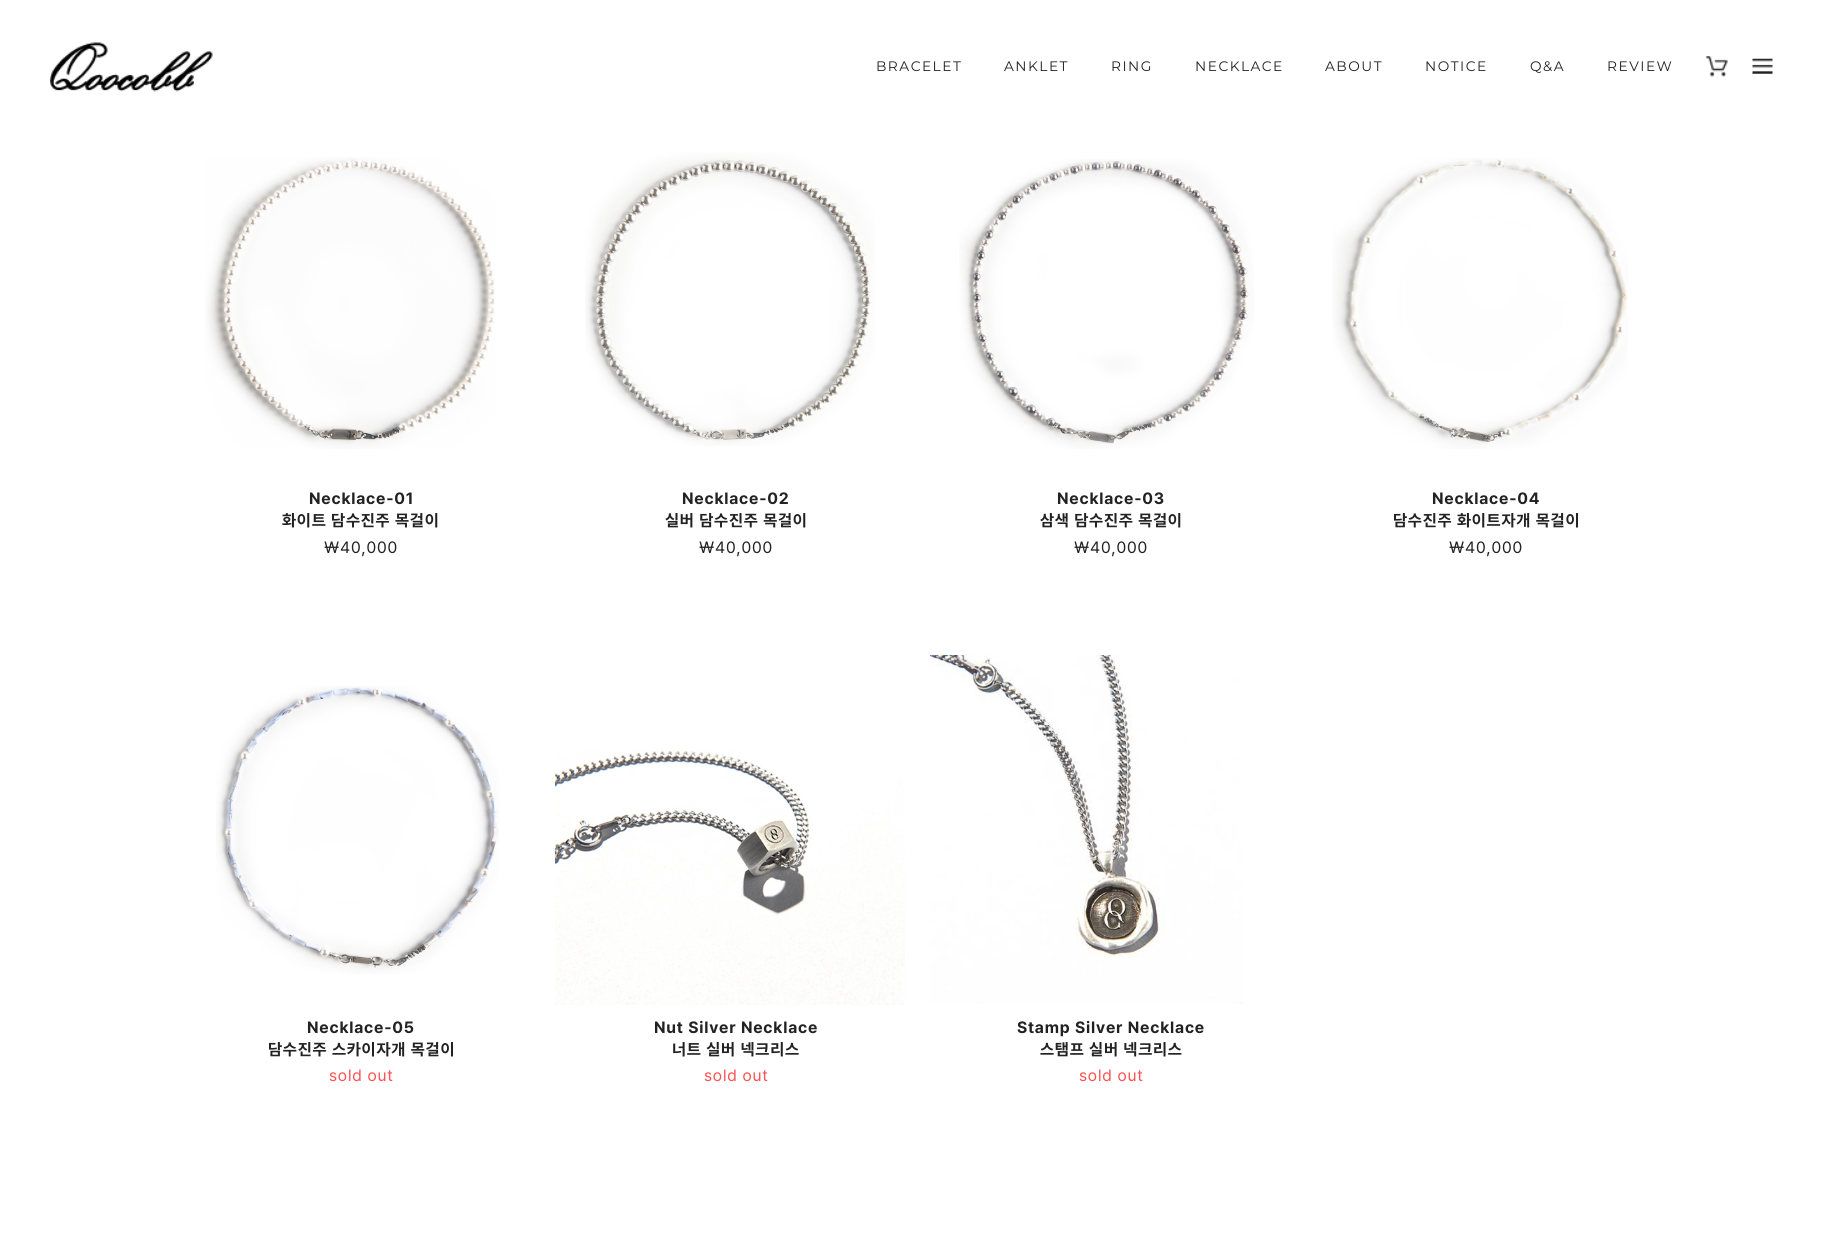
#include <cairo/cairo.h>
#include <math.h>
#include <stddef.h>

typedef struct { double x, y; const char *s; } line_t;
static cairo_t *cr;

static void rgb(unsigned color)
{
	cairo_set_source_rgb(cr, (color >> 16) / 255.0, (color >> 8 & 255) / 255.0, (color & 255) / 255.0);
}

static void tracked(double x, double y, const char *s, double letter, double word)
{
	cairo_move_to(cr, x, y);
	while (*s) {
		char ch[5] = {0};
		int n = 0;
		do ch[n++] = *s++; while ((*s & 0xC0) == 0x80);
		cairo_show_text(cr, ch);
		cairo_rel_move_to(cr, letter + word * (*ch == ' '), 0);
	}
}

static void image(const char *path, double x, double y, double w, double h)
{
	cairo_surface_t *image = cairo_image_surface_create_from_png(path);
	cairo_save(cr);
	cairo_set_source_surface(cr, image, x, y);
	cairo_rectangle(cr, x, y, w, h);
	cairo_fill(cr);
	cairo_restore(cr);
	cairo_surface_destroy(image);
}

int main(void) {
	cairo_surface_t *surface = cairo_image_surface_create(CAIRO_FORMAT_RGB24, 1834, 1236);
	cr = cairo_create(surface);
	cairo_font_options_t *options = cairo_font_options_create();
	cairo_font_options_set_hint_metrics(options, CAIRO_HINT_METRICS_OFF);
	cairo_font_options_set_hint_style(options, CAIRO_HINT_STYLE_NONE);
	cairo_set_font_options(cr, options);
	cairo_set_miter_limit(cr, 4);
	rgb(0xffffff);
	cairo_paint(cr);
	image("img/1.png", 50, 42, 163, 50);
	image("img/2.png", 1706, 56, 22, 21);
	image("img/3.png", 1752, 58, 21, 16);
	image("img/4.png", 205, 157, 290, 292);
	image("img/5.png", 585, 152, 290, 294);
	image("img/6.png", 959, 159, 295, 290);
	image("img/7.png", 1332, 158, 296, 291);
	image("img/8.png", 216, 686, 283, 288);
	image("img/9.png", 555, 750, 350, 255);
	image("img/10.png", 930, 655, 312, 349);
	cairo_select_font_face(cr, "Montserrat Thin", CAIRO_FONT_SLANT_NORMAL, CAIRO_FONT_WEIGHT_NORMAL);
	cairo_set_font_size(cr, 13.75);
	rgb(0x222222);
	{
		static const line_t items[] = {
			{876, 71, "BRACELET"},
			{1004, 71, "ANKLET"},
			{1111, 71, "RING"},
			{1195, 71, "NECKLACE"},
			{1325, 71, "ABOUT"},
			{1425, 71, "NOTICE"},
			{1530, 71, "Q&A"},
			{1607, 71, "REVIEW"},
		};
		for (size_t i = 0; i < sizeof items / sizeof *items; i++) {
			tracked(items[i].x, items[i].y, items[i].s, 1.5, 0);
		}
	}
	cairo_select_font_face(cr, "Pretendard", CAIRO_FONT_SLANT_NORMAL, CAIRO_FONT_WEIGHT_BOLD);
	cairo_set_font_size(cr, 16.25);
	tracked(309, 504, "Necklace-01", 0.8, 0);
	tracked(282, 526, "화이트 담수진주 목걸이", 0.8, 0);
	cairo_select_font_face(cr, "Pretendard", CAIRO_FONT_SLANT_NORMAL, CAIRO_FONT_WEIGHT_NORMAL);
	tracked(324, 553, "￦40,000", 0.8, 0);
	cairo_select_font_face(cr, "Pretendard", CAIRO_FONT_SLANT_NORMAL, CAIRO_FONT_WEIGHT_BOLD);
	tracked(682, 504, "Necklace-02", 0.8, 0);
	tracked(665, 526, "실버 담수진주 목걸이", 0.8, 0);
	cairo_select_font_face(cr, "Pretendard", CAIRO_FONT_SLANT_NORMAL, CAIRO_FONT_WEIGHT_NORMAL);
	tracked(699, 553, "￦40,000", 0.8, 0);
	cairo_select_font_face(cr, "Pretendard", CAIRO_FONT_SLANT_NORMAL, CAIRO_FONT_WEIGHT_BOLD);
	tracked(1057, 504, "Necklace-03", 0.8, 0);
	tracked(1040, 526, "삼색 담수진주 목걸이", 0.8, 0);
	cairo_select_font_face(cr, "Pretendard", CAIRO_FONT_SLANT_NORMAL, CAIRO_FONT_WEIGHT_NORMAL);
	tracked(1074, 553, "￦40,000", 0.8, 0);
	cairo_select_font_face(cr, "Pretendard", CAIRO_FONT_SLANT_NORMAL, CAIRO_FONT_WEIGHT_BOLD);
	tracked(1432, 504, "Necklace-04", 0.8, 0);
	tracked(1393, 526, "담수진주 화이트자개 목걸이", 0.8, 0);
	cairo_select_font_face(cr, "Pretendard", CAIRO_FONT_SLANT_NORMAL, CAIRO_FONT_WEIGHT_NORMAL);
	tracked(1449, 553, "￦40,000", 0.8, 0);
	cairo_select_font_face(cr, "Pretendard", CAIRO_FONT_SLANT_NORMAL, CAIRO_FONT_WEIGHT_BOLD);
	tracked(307, 1033, "Necklace-05", 0.8, 0);
	tracked(268, 1055, "담수진주 스카이자개 목걸이", 0.8, 0);
	cairo_select_font_face(cr, "Pretendard", CAIRO_FONT_SLANT_NORMAL, CAIRO_FONT_WEIGHT_NORMAL);
	rgb(0xff5151);
	tracked(329, 1081, "sold out", 0.8, 0);
	cairo_select_font_face(cr, "Pretendard", CAIRO_FONT_SLANT_NORMAL, CAIRO_FONT_WEIGHT_BOLD);
	rgb(0x222222);
	tracked(654, 1033, "Nut Silver Necklace", 0.8, 0);
	tracked(672, 1055, "너트 실버 넥크리스", 0.8, 0);
	cairo_select_font_face(cr, "Pretendard", CAIRO_FONT_SLANT_NORMAL, CAIRO_FONT_WEIGHT_NORMAL);
	rgb(0xff5151);
	tracked(704, 1081, "sold out", 0.8, 0);
	cairo_select_font_face(cr, "Pretendard", CAIRO_FONT_SLANT_NORMAL, CAIRO_FONT_WEIGHT_BOLD);
	rgb(0x222222);
	tracked(1017, 1033, "Stamp Silver Necklace", 0.8, 0);
	tracked(1040, 1055, "스탬프 실버 넥크리스", 0.8, 0);
	cairo_select_font_face(cr, "Pretendard", CAIRO_FONT_SLANT_NORMAL, CAIRO_FONT_WEIGHT_NORMAL);
	rgb(0xff5151);
	tracked(1079, 1081, "sold out", 0.8, 0);
	cairo_surface_write_to_png(surface, "page.png");
	cairo_font_options_destroy(options);
	cairo_destroy(cr);
	cairo_surface_destroy(surface);
	return 0;
}
